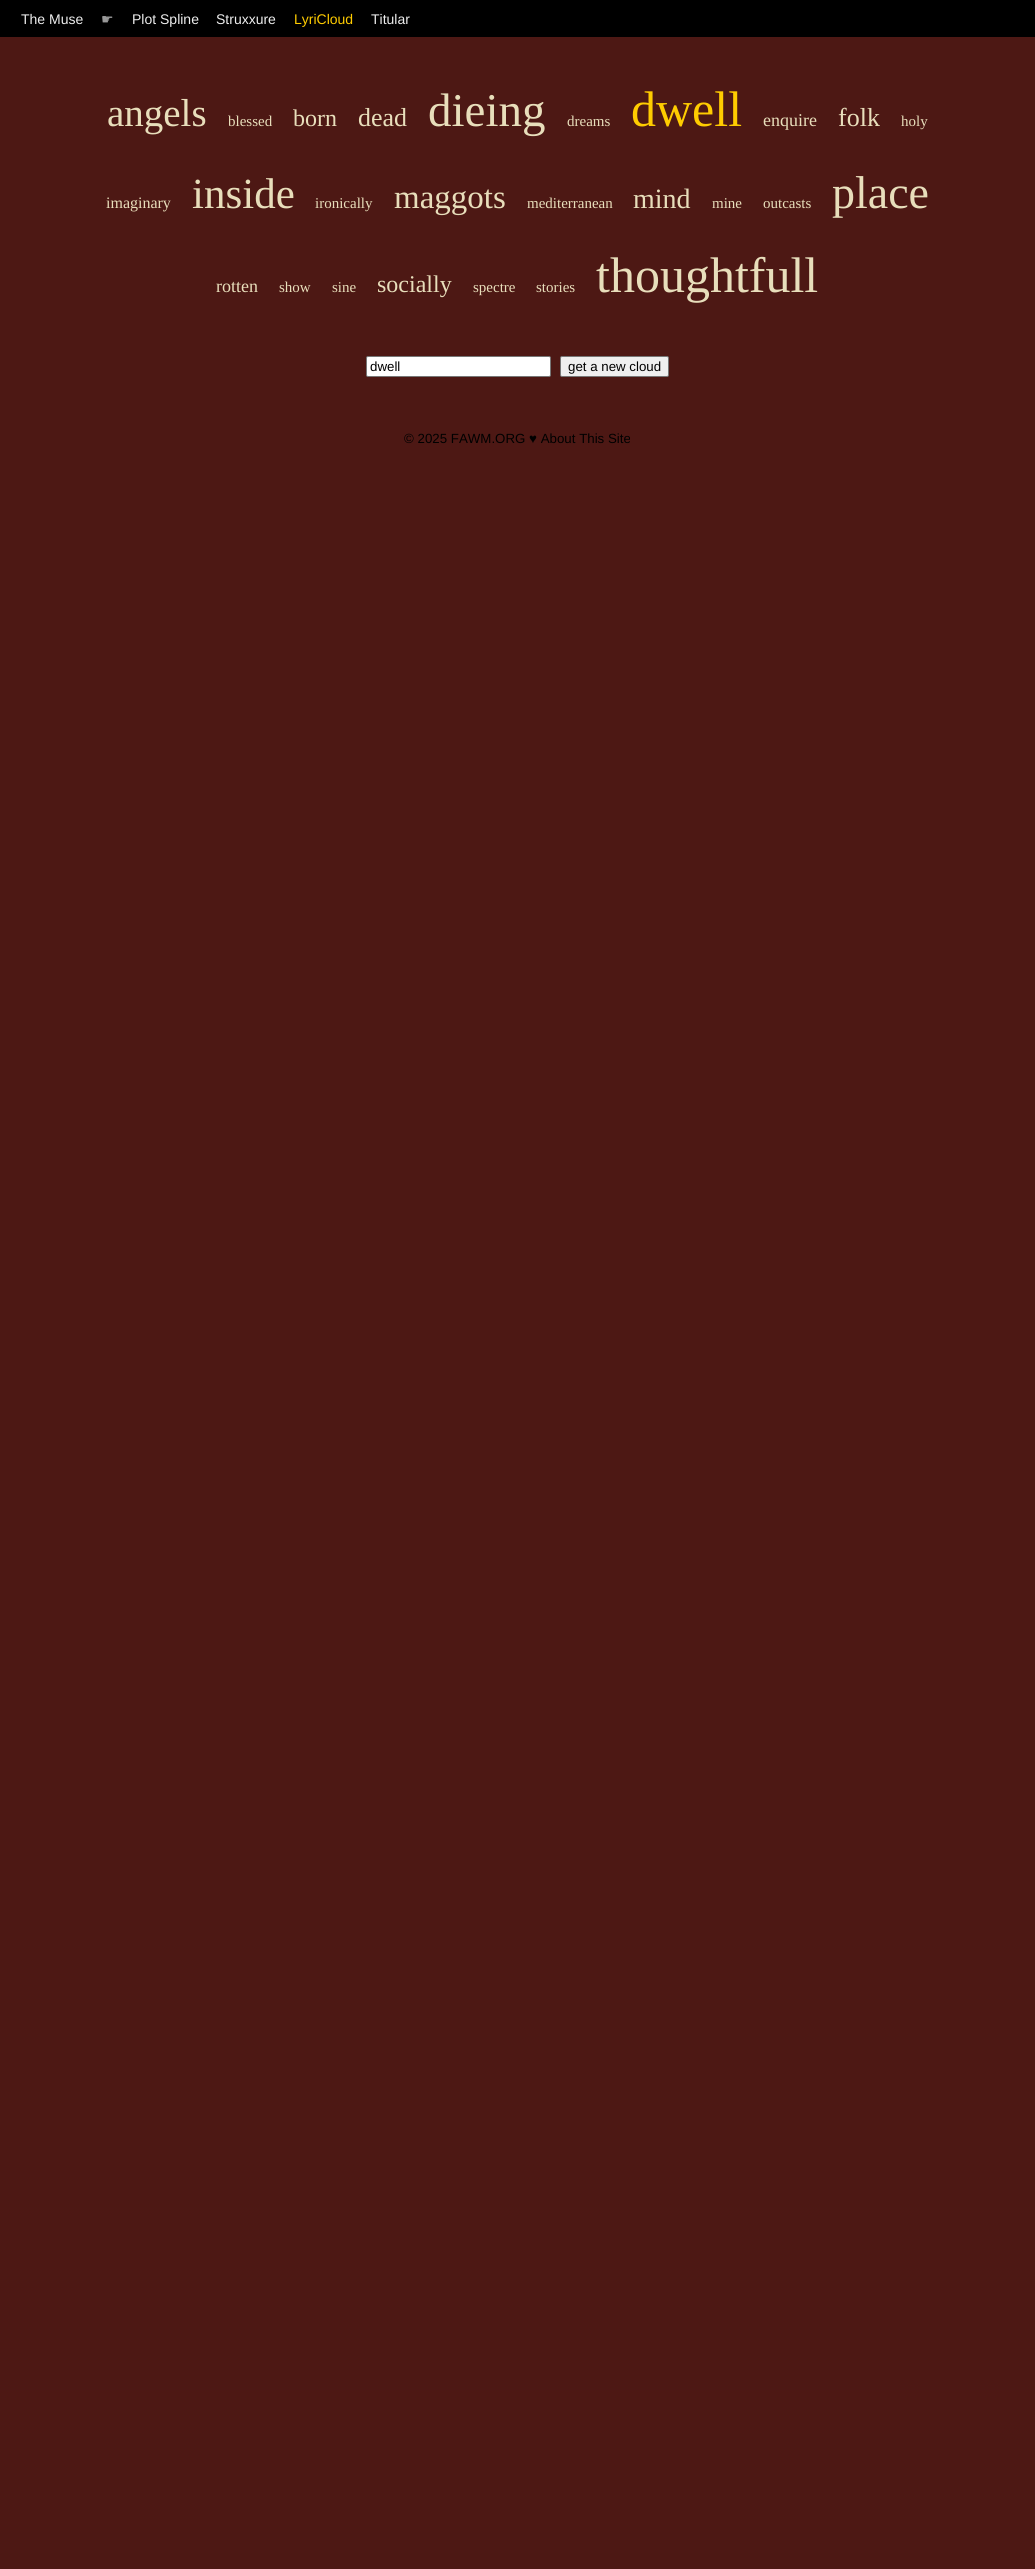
#include <cairo/cairo.h>
#include <math.h>
#include <stddef.h>

typedef struct { double x, y; const char *s; } line_t;
static cairo_t *cr;

static void rgb(unsigned color)
{
	cairo_set_source_rgb(cr, (color >> 16) / 255.0, (color >> 8 & 255) / 255.0, (color & 255) / 255.0);
}

static void rrect(double x, double y, double w, double h, double r)
{
	cairo_new_sub_path(cr);
	cairo_arc(cr, x + w - r, y + h - r, r, 0, M_PI / 2);
	cairo_arc(cr, x + r, y + h - r, r, M_PI / 2, M_PI);
	cairo_arc(cr, x + r, y + r, r, M_PI, 1.5 * M_PI);
	cairo_arc(cr, x + w - r, y + r, r, 1.5 * M_PI, 2 * M_PI);
	cairo_close_path(cr);
}

int main(void) {
	cairo_surface_t *surface = cairo_image_surface_create(CAIRO_FORMAT_RGB24, 1035, 2569);
	cr = cairo_create(surface);
	cairo_font_options_t *options = cairo_font_options_create();
	cairo_font_options_set_hint_metrics(options, CAIRO_HINT_METRICS_OFF);
	cairo_font_options_set_hint_style(options, CAIRO_HINT_STYLE_NONE);
	cairo_set_font_options(cr, options);
	cairo_set_miter_limit(cr, 4);
	rgb(0x4d1814);
	cairo_paint(cr);
	rgb(0x000000);
	cairo_rectangle(cr, 0, 0, 1035, 37);
	cairo_fill(cr);
	rgb(0xffffff);
	rrect(366.5, 356.5, 184, 20, 1.5);
	cairo_fill_preserve(cr);
	rgb(0x767676);
	cairo_set_line_width(cr, 1);
	cairo_stroke(cr);
	rgb(0xefefef);
	rrect(560.5, 356.5, 108, 20, 1.5);
	cairo_fill_preserve(cr);
	rgb(0x767676);
	cairo_stroke(cr);
	cairo_select_font_face(cr, "Liberation Sans", CAIRO_FONT_SLANT_NORMAL, CAIRO_FONT_WEIGHT_NORMAL);
	cairo_set_font_size(cr, 14);
	rgb(0xeeeeee);
	cairo_move_to(cr, 21, 24);
	cairo_show_text(cr, "The Muse");
	cairo_select_font_face(cr, "DejaVu Sans", CAIRO_FONT_SLANT_NORMAL, CAIRO_FONT_WEIGHT_NORMAL);
	rgb(0x999999);
	cairo_move_to(cr, 101, 24);
	cairo_show_text(cr, "☛");
	cairo_select_font_face(cr, "Liberation Sans", CAIRO_FONT_SLANT_NORMAL, CAIRO_FONT_WEIGHT_NORMAL);
	rgb(0xeeeeee);
	cairo_move_to(cr, 132, 24);
	cairo_show_text(cr, "Plot Spline");
	cairo_move_to(cr, 216, 24);
	cairo_show_text(cr, "Struxxure");
	rgb(0xffcc00);
	cairo_move_to(cr, 294, 24);
	cairo_show_text(cr, "LyriCloud");
	rgb(0xeeeeee);
	cairo_move_to(cr, 371, 24);
	cairo_show_text(cr, "Titular");
	cairo_select_font_face(cr, "Liberation Serif", CAIRO_FONT_SLANT_NORMAL, CAIRO_FONT_WEIGHT_NORMAL);
	cairo_set_font_size(cr, 39);
	rgb(0xe8debb);
	cairo_move_to(cr, 107, 126);
	cairo_show_text(cr, "angels");
	cairo_set_font_size(cr, 15);
	cairo_move_to(cr, 228, 126);
	cairo_show_text(cr, "blessed");
	cairo_set_font_size(cr, 24);
	cairo_move_to(cr, 293, 126);
	cairo_show_text(cr, "born");
	cairo_set_font_size(cr, 26);
	cairo_move_to(cr, 358, 126);
	cairo_show_text(cr, "dead");
	cairo_set_font_size(cr, 47);
	cairo_move_to(cr, 428, 126);
	cairo_show_text(cr, "dieing");
	cairo_set_font_size(cr, 15);
	cairo_move_to(cr, 567, 126);
	cairo_show_text(cr, "dreams");
	cairo_set_font_size(cr, 50);
	rgb(0xffcc00);
	cairo_move_to(cr, 631, 126);
	cairo_show_text(cr, "dwell");
	cairo_set_font_size(cr, 18);
	rgb(0xe8debb);
	cairo_move_to(cr, 763, 126);
	cairo_show_text(cr, "enquire");
	cairo_set_font_size(cr, 26);
	cairo_move_to(cr, 838, 126);
	cairo_show_text(cr, "folk");
	cairo_set_font_size(cr, 15);
	cairo_move_to(cr, 901, 126);
	cairo_show_text(cr, "holy");
	cairo_set_font_size(cr, 16);
	cairo_move_to(cr, 106, 208);
	cairo_show_text(cr, "imaginary");
	cairo_set_font_size(cr, 43);
	cairo_move_to(cr, 192, 208);
	cairo_show_text(cr, "inside");
	cairo_set_font_size(cr, 15);
	cairo_move_to(cr, 315, 208);
	cairo_show_text(cr, "ironically");
	cairo_set_font_size(cr, 33);
	cairo_move_to(cr, 394, 208);
	cairo_show_text(cr, "maggots");
	cairo_set_font_size(cr, 15);
	cairo_move_to(cr, 527, 208);
	cairo_show_text(cr, "mediterranean");
	cairo_set_font_size(cr, 28);
	cairo_move_to(cr, 633, 208);
	cairo_show_text(cr, "mind");
	cairo_set_font_size(cr, 15);
	cairo_move_to(cr, 712, 208);
	cairo_show_text(cr, "mine");
	cairo_move_to(cr, 763, 208);
	cairo_show_text(cr, "outcasts");
	cairo_set_font_size(cr, 46);
	cairo_move_to(cr, 832, 208);
	cairo_show_text(cr, "place");
	cairo_set_font_size(cr, 18);
	cairo_move_to(cr, 216, 292);
	cairo_show_text(cr, "rotten");
	cairo_set_font_size(cr, 15);
	cairo_move_to(cr, 279, 292);
	cairo_show_text(cr, "show");
	cairo_move_to(cr, 332, 292);
	cairo_show_text(cr, "sine");
	cairo_set_font_size(cr, 24);
	cairo_move_to(cr, 377, 292);
	cairo_show_text(cr, "socially");
	cairo_set_font_size(cr, 15);
	cairo_move_to(cr, 473, 292);
	cairo_show_text(cr, "spectre");
	cairo_move_to(cr, 536, 292);
	cairo_show_text(cr, "stories");
	cairo_set_font_size(cr, 50);
	cairo_move_to(cr, 596, 292);
	cairo_show_text(cr, "thoughtfull");
	cairo_select_font_face(cr, "Liberation Sans", CAIRO_FONT_SLANT_NORMAL, CAIRO_FONT_WEIGHT_NORMAL);
	cairo_set_font_size(cr, 13.3);
	rgb(0x000000);
	{
		static const line_t items[] = {
			{370, 371, "dwell"},
			{568, 371, "get a new cloud"},
			{404, 443, "© 2025 FAWM.ORG ♥ About This Site"},
		};
		for (size_t i = 0; i < sizeof items / sizeof *items; i++) {
			cairo_move_to(cr, items[i].x, items[i].y);
			cairo_show_text(cr, items[i].s);
		}
	}
	cairo_surface_write_to_png(surface, "page.png");
	cairo_font_options_destroy(options);
	cairo_destroy(cr);
	cairo_surface_destroy(surface);
	return 0;
}
